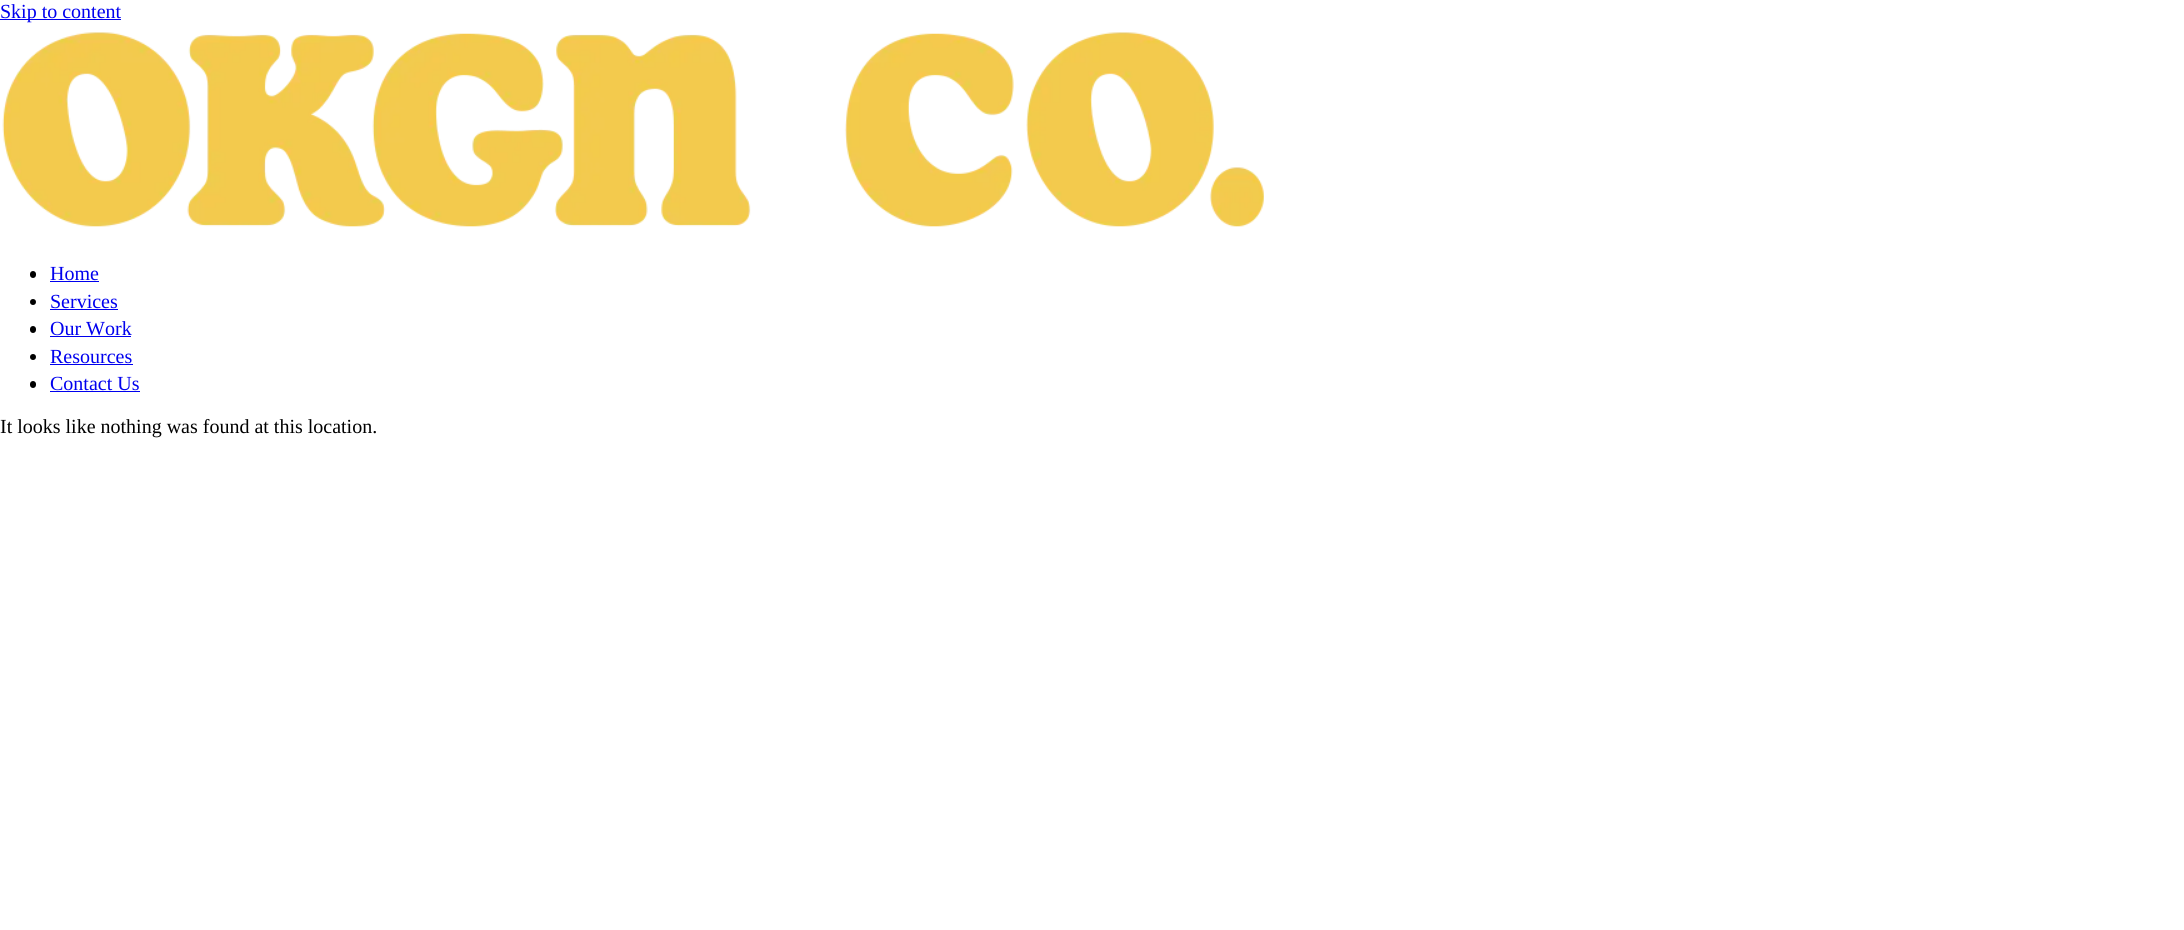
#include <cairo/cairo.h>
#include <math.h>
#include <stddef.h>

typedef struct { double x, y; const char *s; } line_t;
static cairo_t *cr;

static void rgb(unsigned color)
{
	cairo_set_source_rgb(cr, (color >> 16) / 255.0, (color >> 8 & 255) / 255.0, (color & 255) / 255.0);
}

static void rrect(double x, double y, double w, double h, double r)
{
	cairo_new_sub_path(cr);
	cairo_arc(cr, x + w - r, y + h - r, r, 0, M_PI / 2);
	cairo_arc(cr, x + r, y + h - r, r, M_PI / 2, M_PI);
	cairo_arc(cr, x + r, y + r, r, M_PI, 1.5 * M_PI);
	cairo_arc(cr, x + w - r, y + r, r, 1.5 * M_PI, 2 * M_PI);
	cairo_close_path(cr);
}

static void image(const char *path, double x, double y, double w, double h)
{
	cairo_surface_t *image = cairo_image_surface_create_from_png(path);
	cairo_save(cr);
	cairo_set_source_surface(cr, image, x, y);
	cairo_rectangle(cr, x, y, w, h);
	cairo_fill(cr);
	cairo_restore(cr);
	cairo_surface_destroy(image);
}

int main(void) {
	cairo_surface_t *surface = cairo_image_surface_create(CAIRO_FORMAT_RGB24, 2184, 930);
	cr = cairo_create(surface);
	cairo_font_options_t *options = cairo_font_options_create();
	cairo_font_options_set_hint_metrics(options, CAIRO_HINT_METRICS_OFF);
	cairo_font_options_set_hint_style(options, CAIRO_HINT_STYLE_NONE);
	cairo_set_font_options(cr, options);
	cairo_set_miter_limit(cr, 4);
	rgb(0xffffff);
	cairo_paint(cr);
	rgb(0x0000ee);
	cairo_rectangle(cr, 0, 19, 121, 1);
	cairo_fill(cr);
	image("img/1.png", 2, 32, 1262, 195);
	rgb(0x000000);
	rrect(30, 271, 6, 7, 3);
	cairo_fill(cr);
	rgb(0x0000ee);
	cairo_rectangle(cr, 50, 281, 49, 1);
	cairo_fill(cr);
	rgb(0x000000);
	cairo_arc(cr, 33, 302, 3, 0, 2 * M_PI);
	cairo_fill(cr);
	rgb(0x0000ee);
	cairo_rectangle(cr, 50, 309, 68, 1);
	cairo_fill(cr);
	rgb(0x000000);
	rrect(30, 326, 6, 7, 3);
	cairo_fill(cr);
	rgb(0x0000ee);
	cairo_rectangle(cr, 50, 336, 81, 1);
	cairo_fill(cr);
	rgb(0x000000);
	cairo_arc(cr, 33, 357, 3, 0, 2 * M_PI);
	cairo_fill(cr);
	rgb(0x0000ee);
	cairo_rectangle(cr, 50, 364, 83, 1);
	cairo_fill(cr);
	rgb(0x000000);
	rrect(30, 381, 6, 7, 3);
	cairo_fill(cr);
	rgb(0x0000ee);
	cairo_rectangle(cr, 50, 391, 90, 1);
	cairo_fill(cr);
	cairo_select_font_face(cr, "Liberation Serif", CAIRO_FONT_SLANT_NORMAL, CAIRO_FONT_WEIGHT_NORMAL);
	cairo_set_font_size(cr, 20);
	{
		static const line_t items[] = {
			{0, 18, "Skip to content"},
			{50, 280, "Home"},
			{50, 308, "Services"},
			{50, 335, "Our Work"},
			{50, 363, "Resources"},
			{50, 390, "Contact Us"},
		};
		for (size_t i = 0; i < sizeof items / sizeof *items; i++) {
			cairo_move_to(cr, items[i].x, items[i].y);
			cairo_show_text(cr, items[i].s);
		}
	}
	rgb(0x000000);
	cairo_move_to(cr, 0, 433);
	cairo_show_text(cr, "It looks like nothing was found at this location.");
	cairo_surface_write_to_png(surface, "page.png");
	cairo_font_options_destroy(options);
	cairo_destroy(cr);
	cairo_surface_destroy(surface);
	return 0;
}
